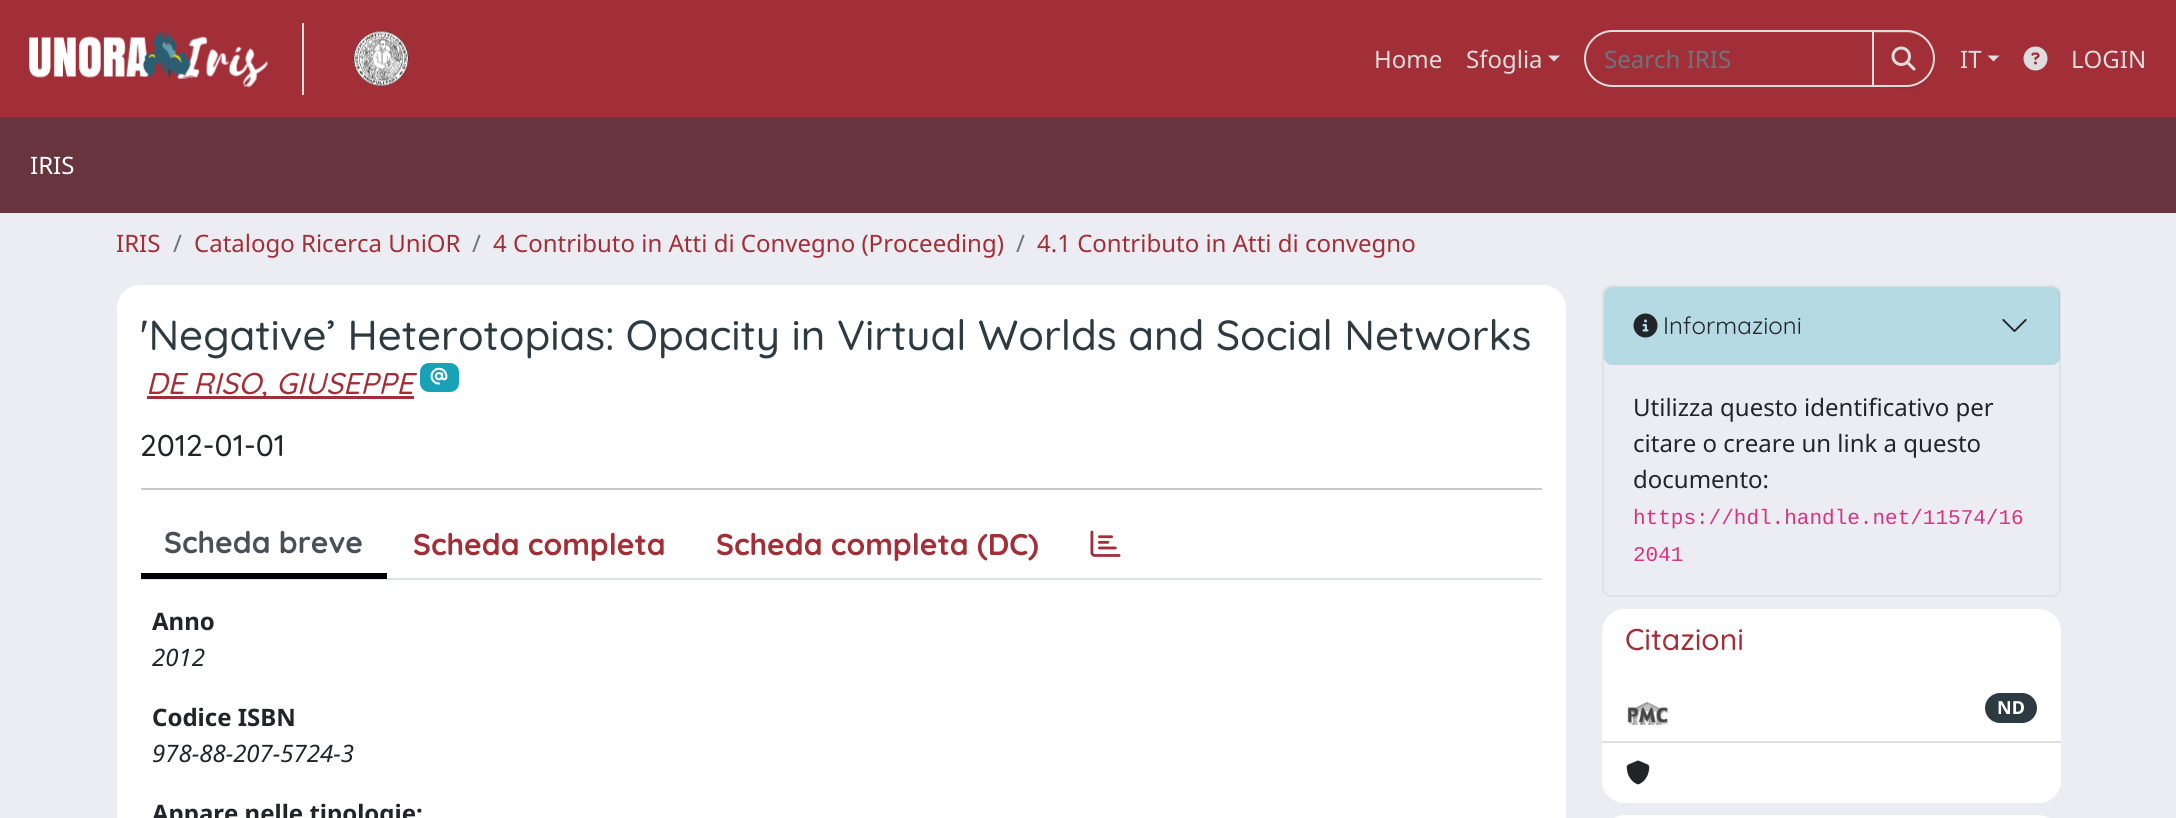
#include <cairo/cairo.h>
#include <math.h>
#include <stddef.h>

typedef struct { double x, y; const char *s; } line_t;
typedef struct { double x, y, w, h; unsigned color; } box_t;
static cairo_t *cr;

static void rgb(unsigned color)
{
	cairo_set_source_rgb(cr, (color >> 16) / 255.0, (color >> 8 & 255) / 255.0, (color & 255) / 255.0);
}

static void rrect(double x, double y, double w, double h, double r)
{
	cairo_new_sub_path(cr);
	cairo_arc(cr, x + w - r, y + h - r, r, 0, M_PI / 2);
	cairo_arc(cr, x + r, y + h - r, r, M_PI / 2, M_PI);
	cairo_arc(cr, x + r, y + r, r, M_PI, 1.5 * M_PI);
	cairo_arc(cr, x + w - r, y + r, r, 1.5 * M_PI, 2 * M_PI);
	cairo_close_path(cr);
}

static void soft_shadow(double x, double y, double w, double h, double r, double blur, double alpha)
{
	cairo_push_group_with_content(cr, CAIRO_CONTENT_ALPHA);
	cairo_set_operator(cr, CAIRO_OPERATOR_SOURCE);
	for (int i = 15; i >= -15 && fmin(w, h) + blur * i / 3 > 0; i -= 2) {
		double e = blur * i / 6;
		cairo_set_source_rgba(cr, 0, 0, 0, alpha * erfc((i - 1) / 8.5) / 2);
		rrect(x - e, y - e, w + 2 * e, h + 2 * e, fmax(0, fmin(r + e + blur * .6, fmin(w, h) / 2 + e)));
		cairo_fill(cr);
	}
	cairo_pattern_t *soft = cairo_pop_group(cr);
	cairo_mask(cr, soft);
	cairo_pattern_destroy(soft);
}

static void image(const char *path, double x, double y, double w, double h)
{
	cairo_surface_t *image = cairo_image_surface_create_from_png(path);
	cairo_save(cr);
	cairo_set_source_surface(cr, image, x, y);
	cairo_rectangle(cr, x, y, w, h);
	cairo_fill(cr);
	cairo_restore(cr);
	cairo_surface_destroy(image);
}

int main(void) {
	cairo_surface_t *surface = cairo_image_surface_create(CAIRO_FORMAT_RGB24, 2176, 818);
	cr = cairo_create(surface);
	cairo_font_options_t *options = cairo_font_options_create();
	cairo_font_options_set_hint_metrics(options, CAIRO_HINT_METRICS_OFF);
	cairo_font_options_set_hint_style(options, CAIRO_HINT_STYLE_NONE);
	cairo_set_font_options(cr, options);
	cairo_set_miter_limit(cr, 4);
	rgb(0xecedf2);
	cairo_paint(cr);
	rgb(0xa22e37);
	cairo_rectangle(cr, 0, 0, 2176, 117);
	cairo_fill(cr);
	rgb(0xdddddd);
	cairo_rectangle(cr, 302, 23, 2, 72);
	cairo_fill(cr);
	image("img/1.png", 29, 31, 239, 57);
	image("img/2.png", 353, 30, 56, 57);
	cairo_new_path(cr);
	cairo_move_to(cr, 1548, 55.5);
	cairo_line_to(cr, 1560, 55.5);
	cairo_line_to(cr, 1554, 61.5);
	cairo_close_path(cr);
	cairo_fill(cr);
	cairo_new_path(cr);
	cairo_move_to(cr, 1612.5, 31);
	cairo_line_to(cr, 1873, 31);
	cairo_line_to(cr, 1873, 86);
	cairo_line_to(cr, 1612.5, 86);
	cairo_curve_to(cr, 1597.5, 86, 1585, 73.5, 1585, 58.5);
	cairo_curve_to(cr, 1585, 43.5, 1597.5, 31, 1612.5, 31);
	cairo_close_path(cr);
	cairo_stroke(cr);
	rgb(0x000000);
	soft_shadow(1872, 32, 63, 57, 28.5, 1, 0.07);
	rgb(0xa22e37);
	cairo_new_path(cr);
	cairo_move_to(cr, 1872, 30);
	cairo_line_to(cr, 1906.5, 30);
	cairo_curve_to(cr, 1922, 30, 1935, 43, 1935, 58.5);
	cairo_curve_to(cr, 1935, 74, 1922, 87, 1906.5, 87);
	cairo_line_to(cr, 1872, 87);
	cairo_close_path(cr);
	cairo_fill(cr);
	rgb(0xb04d55);
	cairo_new_path(cr);
	cairo_move_to(cr, 1874, 33);
	cairo_line_to(cr, 1906, 33);
	cairo_curve_to(cr, 1921, 33, 1934, 45, 1934, 60);
	cairo_line_to(cr, 1934, 59);
	cairo_curve_to(cr, 1934, 44, 1922, 32, 1907, 32);
	cairo_line_to(cr, 1874, 32);
	cairo_close_path(cr);
	cairo_fill(cr);
	cairo_new_path(cr);
	cairo_move_to(cr, 1873, 31);
	cairo_line_to(cr, 1906.5, 31);
	cairo_curve_to(cr, 1921.5, 31, 1934, 43.5, 1934, 58.5);
	cairo_curve_to(cr, 1934, 73.5, 1921.5, 86, 1906.5, 86);
	cairo_line_to(cr, 1873, 86);
	cairo_close_path(cr);
	rgb(0xdddddd);
	cairo_stroke(cr);
	image("img/3.png", 1891, 46, 25, 25);
	cairo_new_path(cr);
	cairo_move_to(cr, 1987.5, 55.5);
	cairo_line_to(cr, 1999.5, 55.5);
	cairo_line_to(cr, 1993.5, 61.5);
	cairo_close_path(cr);
	cairo_fill(cr);
	image("img/4.png", 2023, 46, 25, 25);
	rgb(0x68343d);
	cairo_rectangle(cr, 0, 117, 2176, 96);
	cairo_fill(cr);
	rgb(0xffffff);
	rrect(117, 285, 1449, 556, 23);
	cairo_fill(cr);
	rgb(0xa22e37);
	cairo_rectangle(cr, 147, 396, 267, 3);
	cairo_fill(cr);
	rgb(0x17a2b8);
	rrect(420, 363, 39, 29, 9);
	cairo_fill(cr);
	image("img/5.png", 430, 367, 18, 18);
	{
		static const box_t items[] = {
			{141, 488, 1401, 2, 0xc8c9ca},
			{141, 578, 1401, 2, 0xdee2e6},
			{141, 573, 246, 6, 0x000000},
		};
		for (size_t i = 0; i < sizeof items / sizeof *items; i++) {
			rgb(items[i].color);
			cairo_rectangle(cr, items[i].x, items[i].y, items[i].w, items[i].h);
			cairo_fill(cr);
		}
	}
	image("img/6.png", 1090, 530, 31, 27);
	rrect(1603, 286, 457, 310, 8);
	rgb(0xdee2e6);
	cairo_stroke(cr);
	cairo_set_source_rgba(cr, 0.09, 0.635, 0.722, 0.25);
	rrect(1604, 287, 456, 78, 8);
	cairo_fill(cr);
	image("img/7.png", 1633, 313, 25, 25);
	image("img/8.png", 2002, 319, 25, 13);
	rgb(0xffffff);
	rrect(1602, 609, 459, 194, 23);
	cairo_fill(cr);
	cairo_new_path(cr);
	cairo_move_to(cr, 1625, 609);
	cairo_line_to(cr, 2038, 609);
	cairo_curve_to(cr, 2050.5, 609, 2061, 619.5, 2061, 632);
	cairo_line_to(cr, 2061, 681);
	cairo_line_to(cr, 1602, 681);
	cairo_line_to(cr, 1602, 632);
	cairo_curve_to(cr, 1602, 619.5, 1612.5, 609, 1625, 609);
	cairo_close_path(cr);
	cairo_fill(cr);
	rgb(0xdfdfdf);
	cairo_rectangle(cr, 1602, 741, 459, 2);
	cairo_fill(cr);
	image("img/9.png", 1627, 702, 41, 24);
	rgb(0x2d3a42);
	rrect(1985, 693, 52, 30, 15);
	cairo_fill(cr);
	rgb(0xffffff);
	cairo_new_path(cr);
	cairo_move_to(cr, 1602, 743);
	cairo_line_to(cr, 2061, 743);
	cairo_line_to(cr, 2061, 780);
	cairo_curve_to(cr, 2061, 792.5, 2050.5, 803, 2038, 803);
	cairo_line_to(cr, 1625, 803);
	cairo_curve_to(cr, 1612.5, 803, 1602, 792.5, 1602, 780);
	cairo_close_path(cr);
	cairo_fill(cr);
	image("img/10.png", 1626, 760, 24, 25);
	cairo_new_path(cr);
	cairo_move_to(cr, 1625, 815);
	cairo_line_to(cr, 2038, 815);
	cairo_curve_to(cr, 2050.5, 815, 2061, 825.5, 2061, 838);
	cairo_line_to(cr, 2061, 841);
	cairo_line_to(cr, 1602, 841);
	cairo_line_to(cr, 1602, 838);
	cairo_curve_to(cr, 1602, 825.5, 1612.5, 815, 1625, 815);
	cairo_close_path(cr);
	cairo_fill(cr);
	cairo_select_font_face(cr, "Noto Sans", CAIRO_FONT_SLANT_NORMAL, CAIRO_FONT_WEIGHT_NORMAL);
	cairo_set_font_size(cr, 24);
	rgb(0xdddddd);
	cairo_move_to(cr, 1374, 68);
	cairo_show_text(cr, "Home");
	cairo_move_to(cr, 1466, 68);
	cairo_show_text(cr, "Sfoglia");
	rgb(0x6c757d);
	cairo_move_to(cr, 1604, 68);
	cairo_show_text(cr, "Search IRIS");
	rgb(0xdddddd);
	cairo_move_to(cr, 1960, 68);
	cairo_show_text(cr, "IT");
	cairo_move_to(cr, 2071, 68);
	cairo_show_text(cr, "LOGIN");
	rgb(0xffffff);
	cairo_move_to(cr, 30, 174);
	cairo_show_text(cr, "IRIS");
	rgb(0xa22e37);
	cairo_move_to(cr, 116, 252);
	cairo_show_text(cr, "IRIS");
	rgb(0x6c757d);
	cairo_move_to(cr, 173, 252);
	cairo_show_text(cr, "/");
	rgb(0xa22e37);
	cairo_move_to(cr, 194, 252);
	cairo_show_text(cr, "Catalogo Ricerca UniOR");
	rgb(0x6c757d);
	cairo_move_to(cr, 472, 252);
	cairo_show_text(cr, "/");
	rgb(0xa22e37);
	cairo_move_to(cr, 493, 252);
	cairo_show_text(cr, "4 Contributo in Atti di Convegno (Proceeding)");
	rgb(0x6c757d);
	cairo_move_to(cr, 1016, 252);
	cairo_show_text(cr, "/");
	rgb(0xa22e37);
	cairo_move_to(cr, 1037, 252);
	cairo_show_text(cr, "4.1 Contributo in Atti di convegno");
	cairo_select_font_face(cr, "Quicksand Medium", CAIRO_FONT_SLANT_NORMAL, CAIRO_FONT_WEIGHT_NORMAL);
	cairo_set_font_size(cr, 42);
	rgb(0x2d3a42);
	cairo_move_to(cr, 140, 350);
	cairo_show_text(cr, "'Negative’ Heterotopias: Opacity in Virtual Worlds and Social Networks");
	cairo_select_font_face(cr, "Quicksand Medium", CAIRO_FONT_SLANT_ITALIC, CAIRO_FONT_WEIGHT_NORMAL);
	cairo_set_font_size(cr, 30);
	rgb(0xa22e37);
	cairo_move_to(cr, 146, 394);
	cairo_show_text(cr, "DE RISO, GIUSEPPE");
	cairo_select_font_face(cr, "Quicksand Medium", CAIRO_FONT_SLANT_NORMAL, CAIRO_FONT_WEIGHT_NORMAL);
	rgb(0x212529);
	cairo_move_to(cr, 140, 456);
	cairo_show_text(cr, "2012-01-01");
	cairo_select_font_face(cr, "Quicksand", CAIRO_FONT_SLANT_NORMAL, CAIRO_FONT_WEIGHT_BOLD);
	rgb(0x495057);
	cairo_move_to(cr, 164, 553);
	cairo_show_text(cr, "Scheda breve");
	rgb(0xa22e37);
	cairo_move_to(cr, 413, 555);
	cairo_show_text(cr, "Scheda completa");
	cairo_move_to(cr, 716, 555);
	cairo_show_text(cr, "Scheda completa (DC)");
	cairo_select_font_face(cr, "Noto Sans", CAIRO_FONT_SLANT_NORMAL, CAIRO_FONT_WEIGHT_BOLD);
	cairo_set_font_size(cr, 24);
	rgb(0x212529);
	cairo_move_to(cr, 152, 630);
	cairo_show_text(cr, "Anno");
	cairo_select_font_face(cr, "Noto Sans", CAIRO_FONT_SLANT_ITALIC, CAIRO_FONT_WEIGHT_NORMAL);
	cairo_move_to(cr, 152, 666);
	cairo_show_text(cr, "2012");
	cairo_select_font_face(cr, "Noto Sans", CAIRO_FONT_SLANT_NORMAL, CAIRO_FONT_WEIGHT_BOLD);
	cairo_move_to(cr, 152, 726);
	cairo_show_text(cr, "Codice ISBN");
	cairo_select_font_face(cr, "Noto Sans", CAIRO_FONT_SLANT_ITALIC, CAIRO_FONT_WEIGHT_NORMAL);
	cairo_move_to(cr, 152, 762);
	cairo_show_text(cr, "978-88-207-5724-3");
	cairo_select_font_face(cr, "Noto Sans", CAIRO_FONT_SLANT_NORMAL, CAIRO_FONT_WEIGHT_BOLD);
	cairo_move_to(cr, 152, 822);
	cairo_show_text(cr, "Appare nelle tipologie:");
	cairo_select_font_face(cr, "Quicksand", CAIRO_FONT_SLANT_NORMAL, CAIRO_FONT_WEIGHT_NORMAL);
	cairo_move_to(cr, 1663, 334);
	cairo_show_text(cr, "Informazioni");
	cairo_select_font_face(cr, "Noto Sans", CAIRO_FONT_SLANT_NORMAL, CAIRO_FONT_WEIGHT_NORMAL);
	{
		static const line_t items[] = {
			{1633, 416, "Utilizza questo identificativo per"},
			{1633, 452, "citare o creare un link a questo"},
			{1633, 488, "documento:"},
		};
		for (size_t i = 0; i < sizeof items / sizeof *items; i++) {
			cairo_move_to(cr, items[i].x, items[i].y);
			cairo_show_text(cr, items[i].s);
		}
	}
	cairo_select_font_face(cr, "Liberation Mono", CAIRO_FONT_SLANT_NORMAL, CAIRO_FONT_WEIGHT_NORMAL);
	cairo_set_font_size(cr, 21);
	rgb(0xd63384);
	cairo_move_to(cr, 1633, 524);
	cairo_show_text(cr, "https://hdl.handle.net/11574/16");
	cairo_move_to(cr, 1633, 561);
	cairo_show_text(cr, "2041");
	cairo_select_font_face(cr, "Quicksand Medium", CAIRO_FONT_SLANT_NORMAL, CAIRO_FONT_WEIGHT_NORMAL);
	cairo_set_font_size(cr, 30);
	rgb(0xa22e37);
	cairo_move_to(cr, 1625, 650);
	cairo_show_text(cr, "Citazioni");
	cairo_select_font_face(cr, "Noto Sans", CAIRO_FONT_SLANT_NORMAL, CAIRO_FONT_WEIGHT_BOLD);
	cairo_set_font_size(cr, 18);
	rgb(0xffffff);
	cairo_move_to(cr, 1997, 714);
	cairo_show_text(cr, "ND");
	cairo_surface_write_to_png(surface, "page.png");
	cairo_font_options_destroy(options);
	cairo_destroy(cr);
	cairo_surface_destroy(surface);
	return 0;
}
